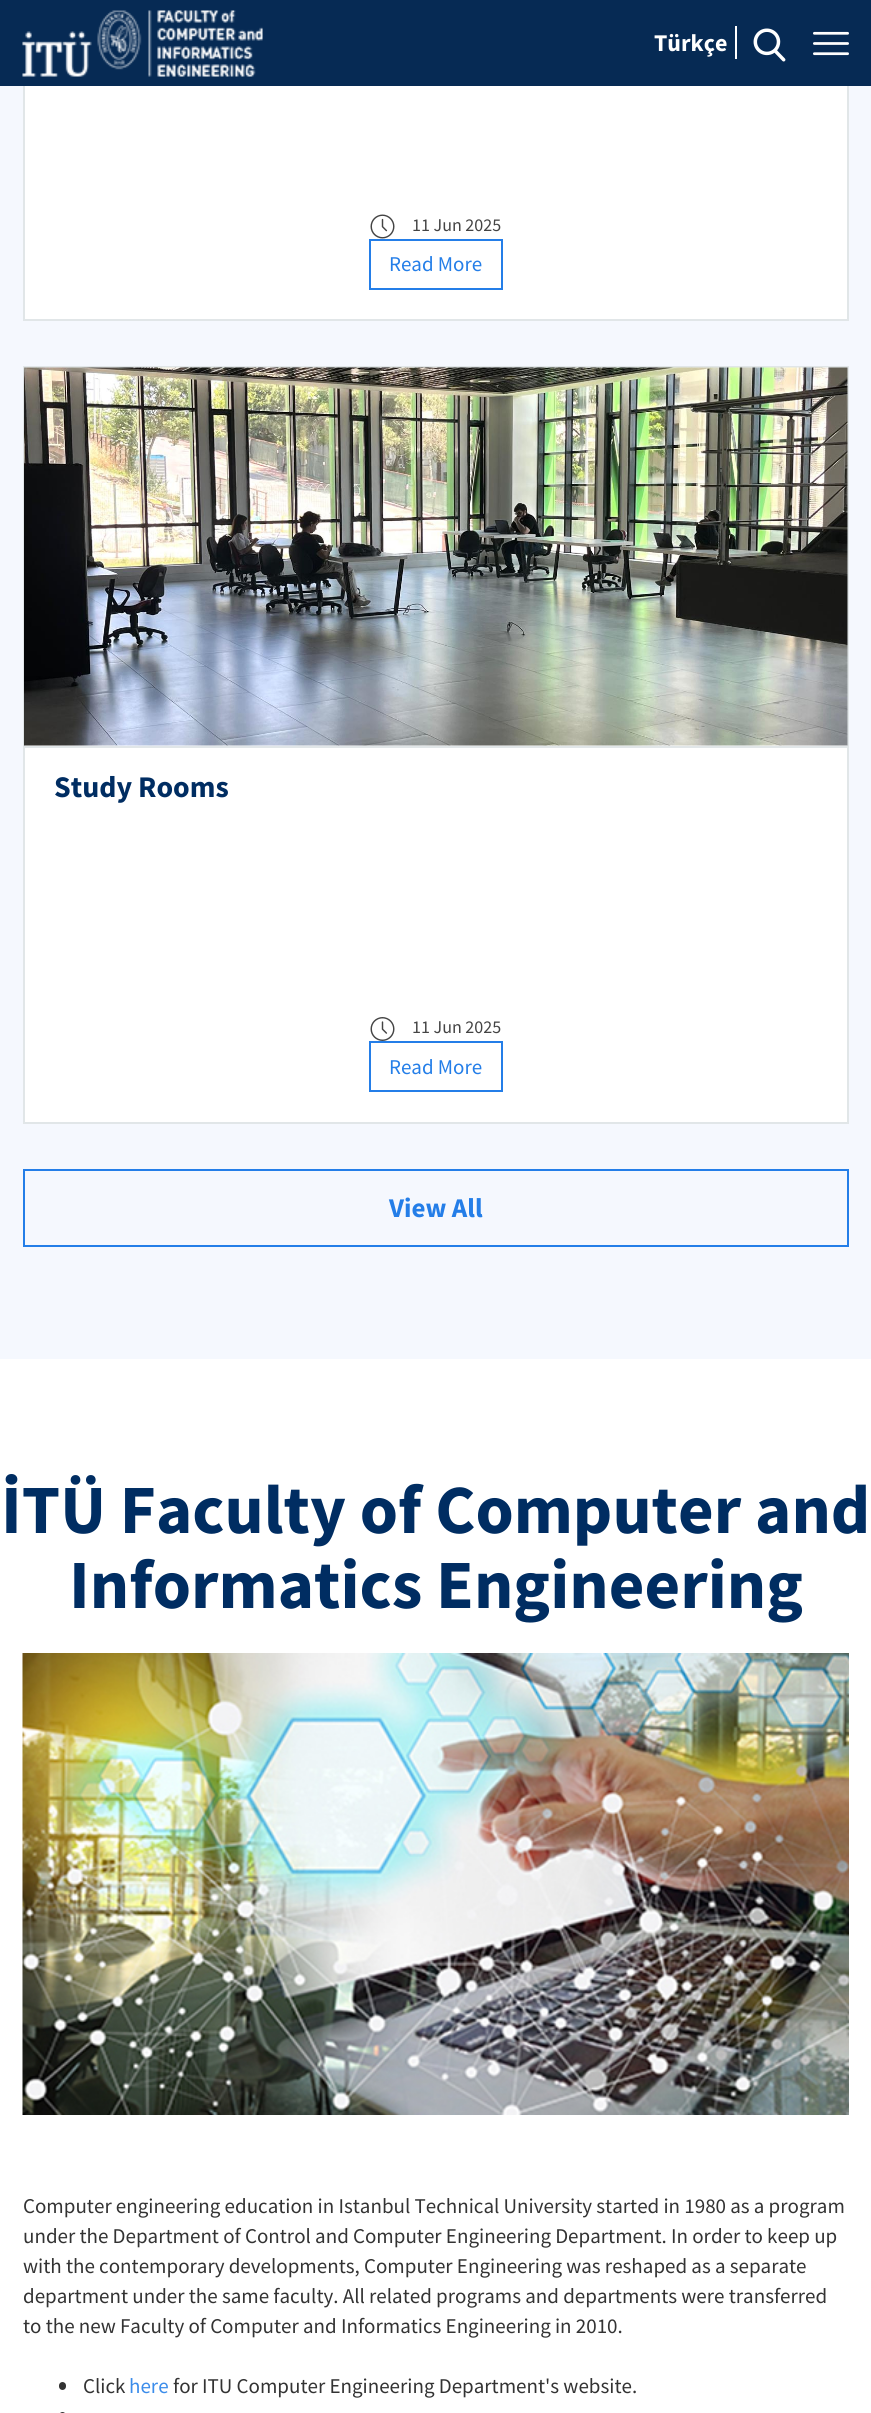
#include <cairo/cairo.h>
#include <math.h>
#include <stddef.h>

typedef struct { double x, y; const char *s; } line_t;
static cairo_t *cr;

static void rgb(unsigned color)
{
	cairo_set_source_rgb(cr, (color >> 16) / 255.0, (color >> 8 & 255) / 255.0, (color & 255) / 255.0);
}

static void rrect(double x, double y, double w, double h, double r)
{
	cairo_new_sub_path(cr);
	cairo_arc(cr, x + w - r, y + h - r, r, 0, M_PI / 2);
	cairo_arc(cr, x + r, y + h - r, r, M_PI / 2, M_PI);
	cairo_arc(cr, x + r, y + r, r, M_PI, 1.5 * M_PI);
	cairo_arc(cr, x + w - r, y + r, r, 1.5 * M_PI, 2 * M_PI);
	cairo_close_path(cr);
}

static void image(const char *path, double x, double y, double w, double h)
{
	cairo_surface_t *image = cairo_image_surface_create_from_png(path);
	cairo_save(cr);
	cairo_set_source_surface(cr, image, x, y);
	cairo_rectangle(cr, x, y, w, h);
	cairo_fill(cr);
	cairo_restore(cr);
	cairo_surface_destroy(image);
}

int main(void) {
	cairo_surface_t *surface = cairo_image_surface_create(CAIRO_FORMAT_RGB24, 871, 2413);
	cr = cairo_create(surface);
	cairo_font_options_t *options = cairo_font_options_create();
	cairo_font_options_set_hint_metrics(options, CAIRO_HINT_METRICS_OFF);
	cairo_font_options_set_hint_style(options, CAIRO_HINT_STYLE_NONE);
	cairo_set_font_options(cr, options);
	cairo_set_miter_limit(cr, 4);
	rgb(0xf5f8fe);
	cairo_paint(cr);
	rgb(0xffffff);
	cairo_rectangle(cr, 25, 86, 822, 233);
	cairo_fill(cr);
	cairo_rectangle(cr, 24, -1, 824, 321);
	rgb(0xe1e6e8);
	cairo_stroke(cr);
	rgb(0x062a54);
	cairo_rectangle(cr, 0, 0, 871, 86);
	cairo_fill(cr);
	image("img/1.png", 22, 10, 241, 67);
	rgb(0xffffff);
	cairo_rectangle(cr, 735, 26, 2, 33);
	cairo_fill(cr);
	image("img/2.png", 753, 28, 33, 34);
	image("img/3.png", 813, 31, 36, 25);
	image("img/4.png", 370, 214, 25, 25);
	cairo_rectangle(cr, 370, 240, 132, 49);
	rgb(0x247ee8);
	cairo_stroke(cr);
	rgb(0xffffff);
	cairo_rectangle(cr, 25, 745, 822, 377);
	cairo_fill(cr);
	cairo_rectangle(cr, 24, 367, 824, 756);
	rgb(0xe1e6e8);
	cairo_stroke(cr);
	cairo_rectangle(cr, 24, 746, 824, 2);
	cairo_fill(cr);
	image("img/5.png", 24, 367, 824, 379);
	image("img/6.png", 370, 1017, 25, 24);
	cairo_rectangle(cr, 370, 1042, 132, 49);
	rgb(0x247ee8);
	cairo_stroke(cr);
	cairo_rectangle(cr, 24, 1170, 824, 76);
	cairo_stroke(cr);
	rgb(0xffffff);
	cairo_rectangle(cr, 0, 1359, 871, 1054);
	cairo_fill(cr);
	image("img/7.png", 22, 1653, 827, 462);
	rgb(0x333333);
	rrect(59, 2382, 7, 8, 3.5);
	cairo_fill(cr);
	rrect(59, 2412, 7, 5, 3.5);
	cairo_fill(cr);
	cairo_select_font_face(cr, "Source Sans Pro", CAIRO_FONT_SLANT_NORMAL, CAIRO_FONT_WEIGHT_BOLD);
	cairo_set_font_size(cr, 24);
	rgb(0xffffff);
	cairo_move_to(cr, 654, 51);
	cairo_show_text(cr, "Türkçe");
	cairo_select_font_face(cr, "Source Sans Pro", CAIRO_FONT_SLANT_NORMAL, CAIRO_FONT_WEIGHT_NORMAL);
	cairo_set_font_size(cr, 18);
	rgb(0x444444);
	cairo_move_to(cr, 412, 231);
	cairo_show_text(cr, "11 Jun 2025");
	cairo_set_font_size(cr, 21);
	rgb(0x247ee8);
	cairo_move_to(cr, 389, 271);
	cairo_show_text(cr, "Read More");
	cairo_select_font_face(cr, "Source Sans Pro", CAIRO_FONT_SLANT_NORMAL, CAIRO_FONT_WEIGHT_BOLD);
	cairo_set_font_size(cr, 30);
	rgb(0x002d62);
	cairo_move_to(cr, 54, 797);
	cairo_show_text(cr, "Study Rooms");
	cairo_select_font_face(cr, "Source Sans Pro", CAIRO_FONT_SLANT_NORMAL, CAIRO_FONT_WEIGHT_NORMAL);
	cairo_set_font_size(cr, 18);
	rgb(0x444444);
	cairo_move_to(cr, 412, 1033);
	cairo_show_text(cr, "11 Jun 2025");
	cairo_set_font_size(cr, 21);
	rgb(0x247ee8);
	cairo_move_to(cr, 389, 1074);
	cairo_show_text(cr, "Read More");
	cairo_select_font_face(cr, "Source Sans Pro", CAIRO_FONT_SLANT_NORMAL, CAIRO_FONT_WEIGHT_BOLD);
	cairo_set_font_size(cr, 27);
	cairo_move_to(cr, 389, 1217);
	cairo_show_text(cr, "View All");
	cairo_set_font_size(cr, 69);
	rgb(0x002d62);
	cairo_move_to(cr, 1, 1533);
	cairo_show_text(cr, "İTÜ Faculty of Computer and");
	cairo_move_to(cr, 69, 1608);
	cairo_show_text(cr, "Informatics Engineering");
	cairo_select_font_face(cr, "Source Sans Pro", CAIRO_FONT_SLANT_NORMAL, CAIRO_FONT_WEIGHT_NORMAL);
	cairo_set_font_size(cr, 21);
	rgb(0x333333);
	{
		static const line_t items[] = {
			{23, 2213, "Computer engineering education in Istanbul Technical University started in 1980 as a program"},
			{23, 2243, "under the Department of Control and Computer Engineering Department. In order to keep up"},
			{23, 2273, "with the contemporary developments, Computer Engineering was reshaped as a separate"},
			{23, 2303, "department under the same faculty. All related programs and departments were transferred"},
			{23, 2333, "to the new Faculty of Computer and Informatics Engineering in 2010."},
			{83, 2393, "Click"},
		};
		for (size_t i = 0; i < sizeof items / sizeof *items; i++) {
			cairo_move_to(cr, items[i].x, items[i].y);
			cairo_show_text(cr, items[i].s);
		}
	}
	rgb(0x3b8cea);
	cairo_move_to(cr, 129, 2393);
	cairo_show_text(cr, "here");
	rgb(0x333333);
	cairo_move_to(cr, 173, 2393);
	cairo_show_text(cr, "for ITU Computer Engineering Department's website.");
	cairo_surface_write_to_png(surface, "page.png");
	cairo_font_options_destroy(options);
	cairo_destroy(cr);
	cairo_surface_destroy(surface);
	return 0;
}
